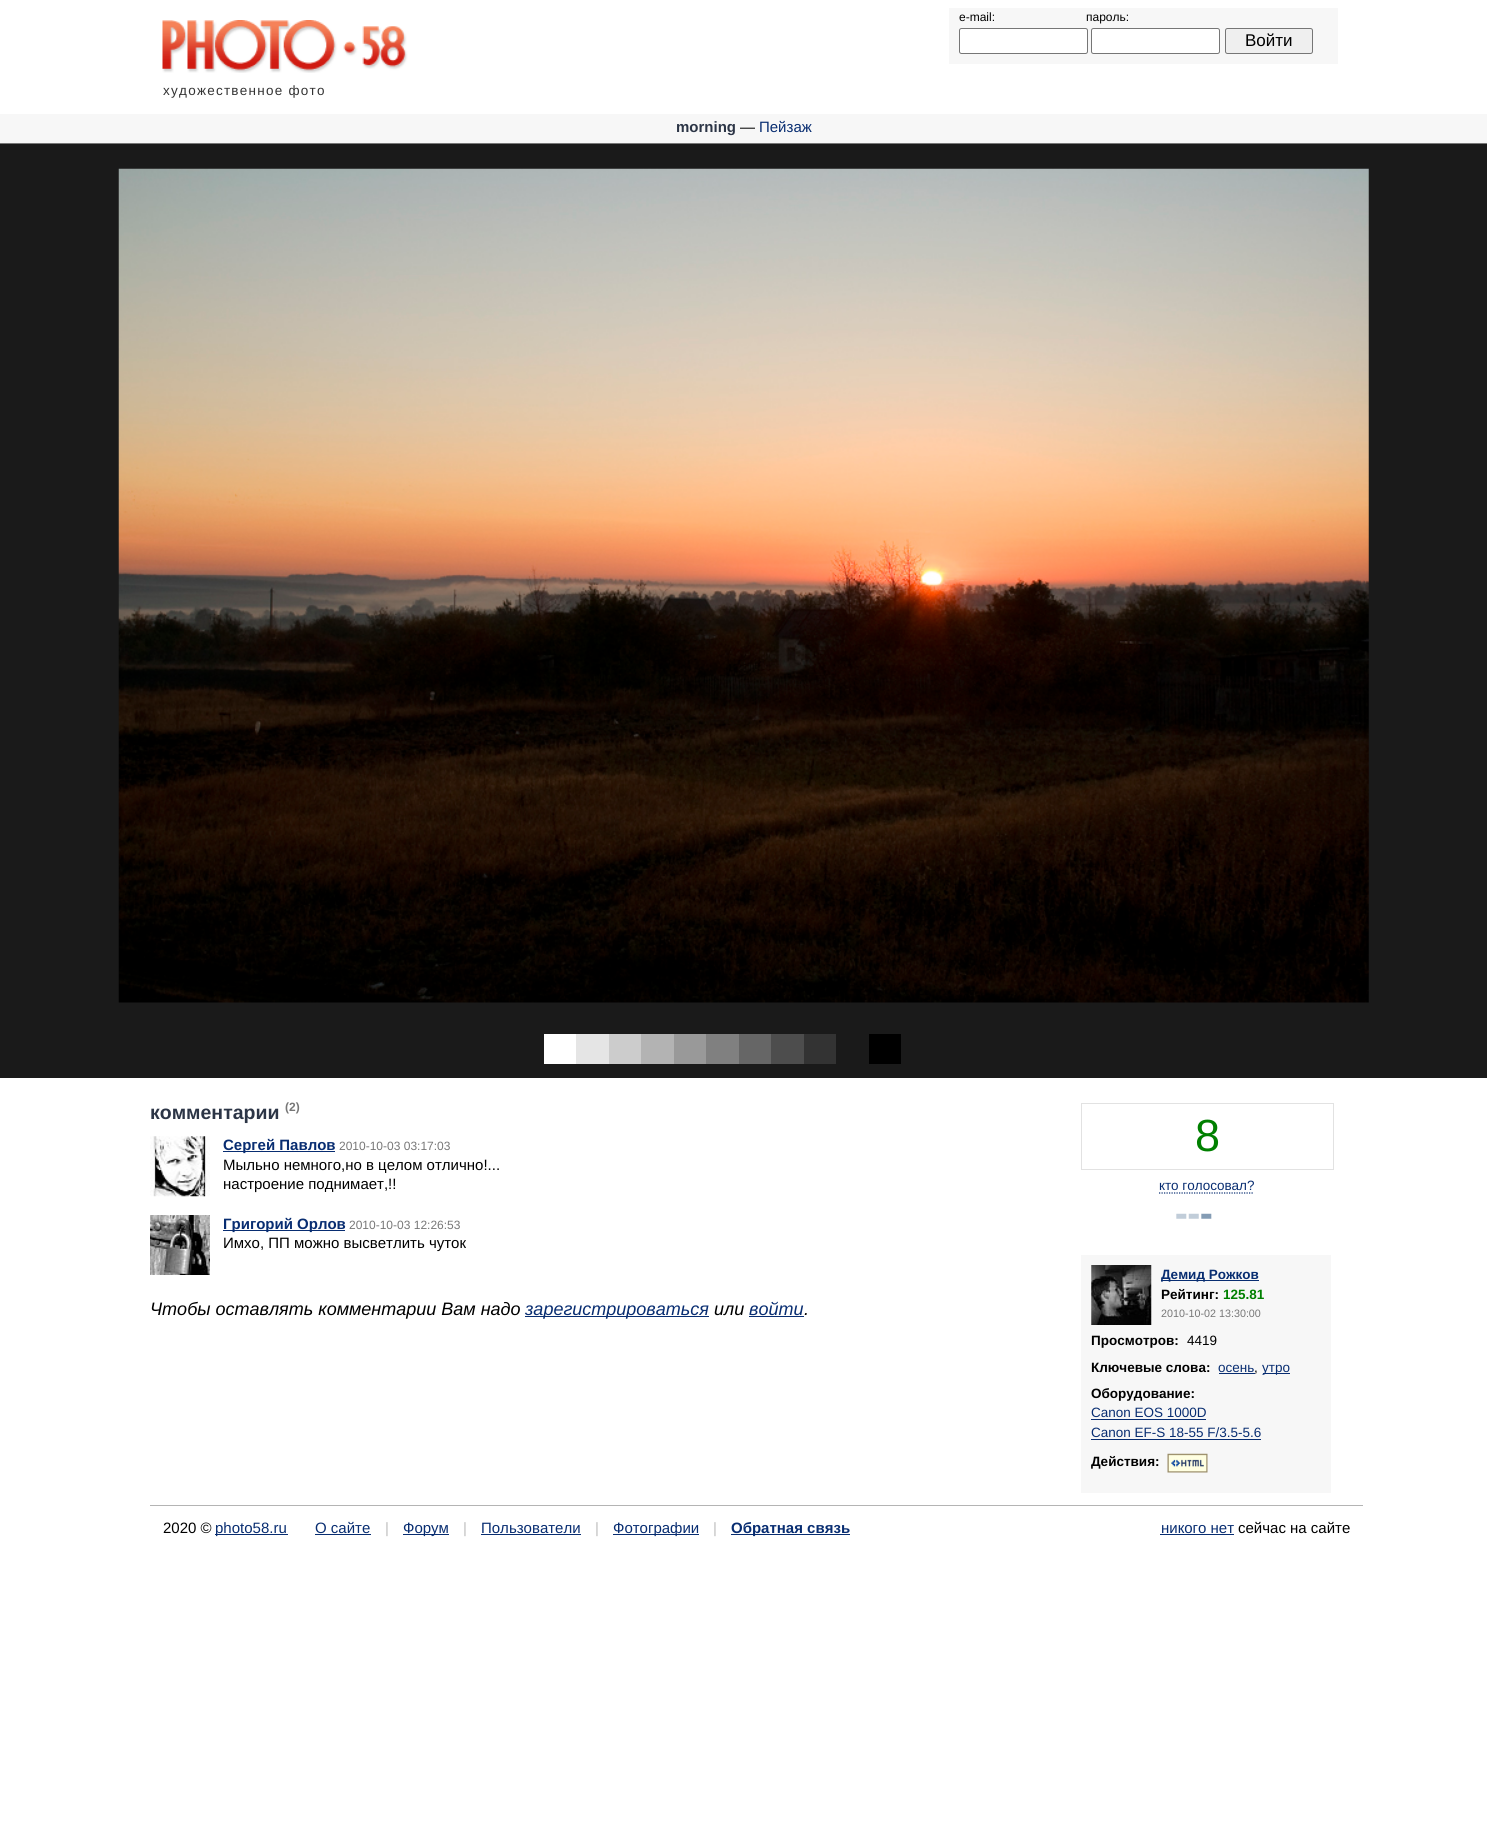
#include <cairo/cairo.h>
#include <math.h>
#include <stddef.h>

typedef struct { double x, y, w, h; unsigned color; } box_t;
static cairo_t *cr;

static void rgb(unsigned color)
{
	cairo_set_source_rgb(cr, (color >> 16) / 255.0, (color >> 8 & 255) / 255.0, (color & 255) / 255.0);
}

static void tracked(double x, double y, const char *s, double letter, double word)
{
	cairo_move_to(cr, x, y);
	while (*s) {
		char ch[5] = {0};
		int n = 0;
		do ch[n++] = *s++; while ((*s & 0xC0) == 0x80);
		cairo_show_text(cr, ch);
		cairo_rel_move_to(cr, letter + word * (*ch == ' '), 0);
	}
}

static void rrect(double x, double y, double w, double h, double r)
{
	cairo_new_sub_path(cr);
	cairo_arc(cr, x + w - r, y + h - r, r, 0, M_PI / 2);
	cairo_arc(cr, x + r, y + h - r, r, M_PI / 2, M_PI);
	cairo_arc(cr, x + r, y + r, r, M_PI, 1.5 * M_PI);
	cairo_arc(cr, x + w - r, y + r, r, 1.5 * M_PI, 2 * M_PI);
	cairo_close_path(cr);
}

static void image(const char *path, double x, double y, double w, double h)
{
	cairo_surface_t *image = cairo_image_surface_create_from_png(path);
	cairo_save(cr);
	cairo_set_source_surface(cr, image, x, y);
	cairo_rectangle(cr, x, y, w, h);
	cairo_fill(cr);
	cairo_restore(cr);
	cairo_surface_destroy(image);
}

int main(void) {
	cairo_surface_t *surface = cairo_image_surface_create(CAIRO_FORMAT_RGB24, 1487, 1821);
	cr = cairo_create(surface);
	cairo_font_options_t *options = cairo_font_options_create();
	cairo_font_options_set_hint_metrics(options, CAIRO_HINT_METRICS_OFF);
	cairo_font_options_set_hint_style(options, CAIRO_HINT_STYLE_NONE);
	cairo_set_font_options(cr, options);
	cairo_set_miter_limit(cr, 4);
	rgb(0xffffff);
	cairo_paint(cr);
	rgb(0xf7f7f7);
	cairo_rectangle(cr, 949, 8, 389, 56);
	cairo_fill(cr);
	rgb(0xffffff);
	rrect(959.5, 28.5, 128, 25, 2);
	cairo_fill_preserve(cr);
	rgb(0x767676);
	cairo_set_line_width(cr, 1);
	cairo_stroke(cr);
	rgb(0xffffff);
	rrect(1091.5, 28.5, 128, 25, 2);
	cairo_fill_preserve(cr);
	rgb(0x767676);
	cairo_stroke(cr);
	rgb(0xefefef);
	rrect(1225.5, 28.5, 87, 25, 2);
	cairo_fill_preserve(cr);
	rgb(0x767676);
	cairo_stroke(cr);
	image("img/1.png", 162, 20, 246, 53);
	{
		static const box_t items[] = {
			{0, 114, 1487, 29, 0xf7f7f7},
			{0, 143, 1487, 1, 0x777777},
			{0, 144, 1487, 934, 0x1a1a1a},
		};
		for (size_t i = 0; i < sizeof items / sizeof *items; i++) {
			rgb(items[i].color);
			cairo_rectangle(cr, items[i].x, items[i].y, items[i].w, items[i].h);
			cairo_fill(cr);
		}
	}
	image("img/2.png", 118, 168, 1251, 835);
	{
		static const box_t items[] = {
			{544, 1034, 32, 30, 0xffffff},
			{576, 1034, 33, 30, 0xe5e5e5},
			{609, 1034, 32, 30, 0xcccccc},
			{641, 1034, 33, 30, 0xb3b3b3},
			{674, 1034, 32, 30, 0x999999},
			{706, 1034, 33, 30, 0x808080},
			{739, 1034, 32, 30, 0x666666},
			{771, 1034, 33, 30, 0x4d4d4d},
			{804, 1034, 32, 30, 0x333333},
			{869, 1034, 32, 30, 0x000000},
		};
		for (size_t i = 0; i < sizeof items / sizeof *items; i++) {
			rgb(items[i].color);
			cairo_rectangle(cr, items[i].x, items[i].y, items[i].w, items[i].h);
			cairo_fill(cr);
		}
	}
	image("img/3.png", 150, 1136, 60, 61);
	rgb(0x082d71);
	cairo_rectangle(cr, 223, 1151, 112, 1);
	cairo_fill(cr);
	image("img/4.png", 150, 1215, 60, 60);
	{
		static const box_t items[] = {
			{223, 1230, 122, 1, 0x082d71},
			{525, 1316, 184, 1, 0x082d71},
			{749, 1316, 55, 1, 0x082d71},
		};
		for (size_t i = 0; i < sizeof items / sizeof *items; i++) {
			rgb(items[i].color);
			cairo_rectangle(cr, items[i].x, items[i].y, items[i].w, items[i].h);
			cairo_fill(cr);
		}
	}
	cairo_rectangle(cr, 1081.5, 1103.5, 252, 66);
	rgb(0xe2e2e2);
	cairo_stroke(cr);
	cairo_new_path(cr);
	cairo_move_to(cr, 1159, 1193);
	cairo_line_to(cr, 1254, 1193);
	rgb(0x082d71);
	cairo_set_line_width(cr, 1.2);
	cairo_set_dash(cr, (double[]){1.25, 1.25}, 2, 0);
	cairo_stroke(cr);
	image("img/5.png", 1176, 1213, 36, 6);
	rgb(0xf7f7f7);
	cairo_rectangle(cr, 1081, 1255, 250, 238);
	cairo_fill(cr);
	image("img/6.png", 1091, 1265, 61, 60);
	{
		static const box_t items[] = {
			{1161, 1280, 98, 1, 0x082d71},
			{1219, 1373, 36, 1, 0x082d71},
			{1263, 1373, 27, 1, 0x082d71},
			{1091, 1419, 115, 1, 0x082d71},
			{1091, 1439, 170, 1, 0x082d71},
		};
		for (size_t i = 0; i < sizeof items / sizeof *items; i++) {
			rgb(items[i].color);
			cairo_rectangle(cr, items[i].x, items[i].y, items[i].w, items[i].h);
			cairo_fill(cr);
		}
	}
	image("img/7.png", 1167, 1453, 41, 20);
	{
		static const box_t items[] = {
			{150, 1505, 1213, 1, 0xb4b4b4},
			{215, 1534, 73, 1, 0x082d71},
			{315, 1534, 56, 1, 0x082d71},
			{403, 1534, 46, 1, 0x082d71},
			{481, 1534, 100, 1, 0x082d71},
			{613, 1534, 86, 1, 0x082d71},
			{731, 1534, 119, 1, 0x082d71},
			{1160, 1534, 74, 1, 0x082d71},
		};
		for (size_t i = 0; i < sizeof items / sizeof *items; i++) {
			rgb(items[i].color);
			cairo_rectangle(cr, items[i].x, items[i].y, items[i].w, items[i].h);
			cairo_fill(cr);
		}
	}
	cairo_select_font_face(cr, "Liberation Sans", CAIRO_FONT_SLANT_NORMAL, CAIRO_FONT_WEIGHT_NORMAL);
	cairo_set_font_size(cr, 12);
	rgb(0x000000);
	cairo_move_to(cr, 959, 21);
	cairo_show_text(cr, "e-mail:");
	cairo_move_to(cr, 1086, 21);
	cairo_show_text(cr, "пароль:");
	cairo_set_font_size(cr, 17);
	cairo_move_to(cr, 1245, 46);
	cairo_show_text(cr, "Войти");
	cairo_set_font_size(cr, 13.5);
	rgb(0x333333);
	tracked(163, 95, "художественное фото", 1.25, 0);
	cairo_select_font_face(cr, "Liberation Sans", CAIRO_FONT_SLANT_NORMAL, CAIRO_FONT_WEIGHT_BOLD);
	cairo_set_font_size(cr, 15);
	rgb(0x2c3546);
	cairo_move_to(cr, 676, 132);
	cairo_show_text(cr, "morning");
	cairo_select_font_face(cr, "Liberation Sans", CAIRO_FONT_SLANT_NORMAL, CAIRO_FONT_WEIGHT_NORMAL);
	rgb(0x000000);
	cairo_move_to(cr, 740, 132);
	cairo_show_text(cr, "—");
	rgb(0x082d71);
	cairo_move_to(cr, 759, 132);
	cairo_show_text(cr, "Пейзаж");
	cairo_select_font_face(cr, "Liberation Sans", CAIRO_FONT_SLANT_NORMAL, CAIRO_FONT_WEIGHT_BOLD);
	cairo_set_font_size(cr, 19.5);
	rgb(0x2c3546);
	cairo_move_to(cr, 150, 1119);
	cairo_show_text(cr, "комментарии");
	cairo_set_font_size(cr, 12);
	rgb(0x777777);
	cairo_move_to(cr, 285, 1111);
	cairo_show_text(cr, "(2)");
	cairo_set_font_size(cr, 15);
	rgb(0x082d71);
	cairo_move_to(cr, 223, 1150);
	cairo_show_text(cr, "Сергей Павлов");
	cairo_select_font_face(cr, "Liberation Sans", CAIRO_FONT_SLANT_NORMAL, CAIRO_FONT_WEIGHT_NORMAL);
	cairo_set_font_size(cr, 12);
	rgb(0x777777);
	cairo_move_to(cr, 339, 1150);
	cairo_show_text(cr, "2010-10-03 03:17:03");
	cairo_set_font_size(cr, 15);
	rgb(0x000000);
	cairo_move_to(cr, 223, 1170);
	cairo_show_text(cr, "Мыльно немного,но в целом отлично!...");
	cairo_move_to(cr, 223, 1189);
	cairo_show_text(cr, "настроение поднимает,!!");
	cairo_select_font_face(cr, "Liberation Sans", CAIRO_FONT_SLANT_NORMAL, CAIRO_FONT_WEIGHT_BOLD);
	rgb(0x082d71);
	cairo_move_to(cr, 223, 1229);
	cairo_show_text(cr, "Григорий Орлов");
	cairo_select_font_face(cr, "Liberation Sans", CAIRO_FONT_SLANT_NORMAL, CAIRO_FONT_WEIGHT_NORMAL);
	cairo_set_font_size(cr, 12);
	rgb(0x777777);
	cairo_move_to(cr, 349, 1229);
	cairo_show_text(cr, "2010-10-03 12:26:53");
	cairo_set_font_size(cr, 15);
	rgb(0x000000);
	cairo_move_to(cr, 223, 1248);
	cairo_show_text(cr, "Имхо, ПП можно высветлить чуток");
	cairo_select_font_face(cr, "Liberation Sans", CAIRO_FONT_SLANT_ITALIC, CAIRO_FONT_WEIGHT_NORMAL);
	cairo_set_font_size(cr, 18);
	cairo_move_to(cr, 150, 1315);
	cairo_show_text(cr, "Чтобы оставлять комментарии Вам надо");
	rgb(0x082d71);
	cairo_move_to(cr, 525, 1315);
	cairo_show_text(cr, "зарегистрироваться");
	rgb(0x000000);
	cairo_move_to(cr, 714, 1315);
	cairo_show_text(cr, "или");
	rgb(0x082d71);
	cairo_move_to(cr, 749, 1315);
	cairo_show_text(cr, "войти");
	rgb(0x000000);
	cairo_move_to(cr, 804, 1315);
	cairo_show_text(cr, ".");
	cairo_select_font_face(cr, "Liberation Sans", CAIRO_FONT_SLANT_NORMAL, CAIRO_FONT_WEIGHT_NORMAL);
	cairo_set_font_size(cr, 45);
	rgb(0x008000);
	cairo_move_to(cr, 1195, 1151);
	cairo_show_text(cr, "8");
	cairo_set_font_size(cr, 13.5);
	rgb(0x082d71);
	cairo_move_to(cr, 1159, 1190);
	cairo_show_text(cr, "кто голосовал?");
	cairo_select_font_face(cr, "Liberation Sans", CAIRO_FONT_SLANT_NORMAL, CAIRO_FONT_WEIGHT_BOLD);
	cairo_move_to(cr, 1161, 1279);
	cairo_show_text(cr, "Демид Рожков");
	rgb(0x000000);
	cairo_move_to(cr, 1161, 1299);
	cairo_show_text(cr, "Рейтинг:");
	rgb(0x008000);
	cairo_move_to(cr, 1223, 1299);
	cairo_show_text(cr, "125.81");
	cairo_select_font_face(cr, "Liberation Sans", CAIRO_FONT_SLANT_NORMAL, CAIRO_FONT_WEIGHT_NORMAL);
	cairo_set_font_size(cr, 10.75);
	rgb(0x777777);
	cairo_move_to(cr, 1161, 1317);
	cairo_show_text(cr, "2010-10-02 13:30:00");
	cairo_select_font_face(cr, "Liberation Sans", CAIRO_FONT_SLANT_NORMAL, CAIRO_FONT_WEIGHT_BOLD);
	cairo_set_font_size(cr, 13.5);
	rgb(0x000000);
	cairo_move_to(cr, 1091, 1345);
	cairo_show_text(cr, "Просмотров:");
	cairo_select_font_face(cr, "Liberation Sans", CAIRO_FONT_SLANT_NORMAL, CAIRO_FONT_WEIGHT_NORMAL);
	cairo_move_to(cr, 1187, 1345);
	cairo_show_text(cr, "4419");
	cairo_select_font_face(cr, "Liberation Sans", CAIRO_FONT_SLANT_NORMAL, CAIRO_FONT_WEIGHT_BOLD);
	cairo_move_to(cr, 1091, 1372);
	cairo_show_text(cr, "Ключевые слова:");
	cairo_select_font_face(cr, "Liberation Sans", CAIRO_FONT_SLANT_NORMAL, CAIRO_FONT_WEIGHT_NORMAL);
	rgb(0x082d71);
	cairo_move_to(cr, 1218, 1372);
	cairo_show_text(cr, "осень");
	rgb(0x000000);
	cairo_move_to(cr, 1254, 1372);
	cairo_show_text(cr, ",");
	rgb(0x082d71);
	cairo_move_to(cr, 1262, 1372);
	cairo_show_text(cr, "утро");
	cairo_select_font_face(cr, "Liberation Sans", CAIRO_FONT_SLANT_NORMAL, CAIRO_FONT_WEIGHT_BOLD);
	rgb(0x000000);
	cairo_move_to(cr, 1091, 1398);
	cairo_show_text(cr, "Оборудование:");
	cairo_select_font_face(cr, "Liberation Sans", CAIRO_FONT_SLANT_NORMAL, CAIRO_FONT_WEIGHT_NORMAL);
	rgb(0x082d71);
	cairo_move_to(cr, 1091, 1417);
	cairo_show_text(cr, "Canon EOS 1000D");
	cairo_move_to(cr, 1091, 1437);
	cairo_show_text(cr, "Canon EF-S 18-55 F/3.5-5.6");
	cairo_select_font_face(cr, "Liberation Sans", CAIRO_FONT_SLANT_NORMAL, CAIRO_FONT_WEIGHT_BOLD);
	rgb(0x000000);
	cairo_move_to(cr, 1091, 1466);
	cairo_show_text(cr, "Действия:");
	cairo_select_font_face(cr, "Liberation Sans", CAIRO_FONT_SLANT_NORMAL, CAIRO_FONT_WEIGHT_NORMAL);
	cairo_set_font_size(cr, 15);
	cairo_move_to(cr, 163, 1533);
	cairo_show_text(cr, "2020 ©");
	rgb(0x082d71);
	cairo_move_to(cr, 215, 1533);
	cairo_show_text(cr, "photo58.ru");
	cairo_move_to(cr, 315, 1533);
	cairo_show_text(cr, "О сайте");
	rgb(0xc0c0c0);
	cairo_move_to(cr, 385, 1533);
	cairo_show_text(cr, "|");
	rgb(0x082d71);
	cairo_move_to(cr, 403, 1533);
	cairo_show_text(cr, "Форум");
	rgb(0xc0c0c0);
	cairo_move_to(cr, 463, 1533);
	cairo_show_text(cr, "|");
	rgb(0x082d71);
	cairo_move_to(cr, 481, 1533);
	cairo_show_text(cr, "Пользователи");
	rgb(0xc0c0c0);
	cairo_move_to(cr, 595, 1533);
	cairo_show_text(cr, "|");
	rgb(0x082d71);
	cairo_move_to(cr, 613, 1533);
	cairo_show_text(cr, "Фотографии");
	rgb(0xc0c0c0);
	cairo_move_to(cr, 713, 1533);
	cairo_show_text(cr, "|");
	cairo_select_font_face(cr, "Liberation Sans", CAIRO_FONT_SLANT_NORMAL, CAIRO_FONT_WEIGHT_BOLD);
	rgb(0x082d71);
	cairo_move_to(cr, 731, 1533);
	cairo_show_text(cr, "Обратная связь");
	cairo_select_font_face(cr, "Liberation Sans", CAIRO_FONT_SLANT_NORMAL, CAIRO_FONT_WEIGHT_NORMAL);
	cairo_move_to(cr, 1161, 1533);
	cairo_show_text(cr, "никого нет");
	rgb(0x000000);
	cairo_move_to(cr, 1238, 1533);
	cairo_show_text(cr, "сейчас на сайте");
	cairo_surface_write_to_png(surface, "page.png");
	cairo_font_options_destroy(options);
	cairo_destroy(cr);
	cairo_surface_destroy(surface);
	return 0;
}
